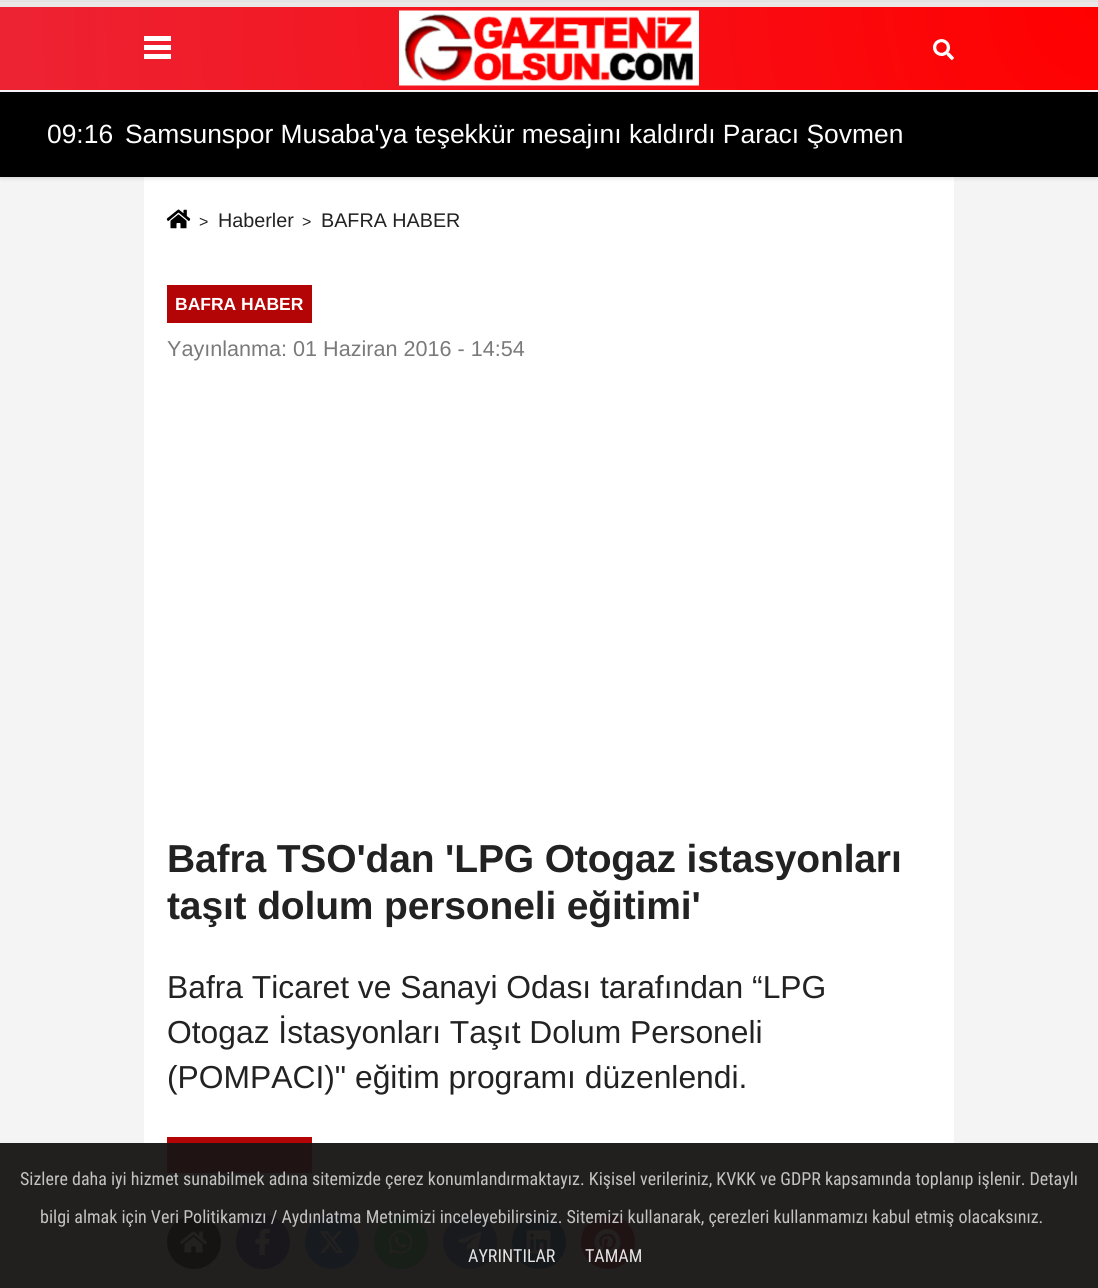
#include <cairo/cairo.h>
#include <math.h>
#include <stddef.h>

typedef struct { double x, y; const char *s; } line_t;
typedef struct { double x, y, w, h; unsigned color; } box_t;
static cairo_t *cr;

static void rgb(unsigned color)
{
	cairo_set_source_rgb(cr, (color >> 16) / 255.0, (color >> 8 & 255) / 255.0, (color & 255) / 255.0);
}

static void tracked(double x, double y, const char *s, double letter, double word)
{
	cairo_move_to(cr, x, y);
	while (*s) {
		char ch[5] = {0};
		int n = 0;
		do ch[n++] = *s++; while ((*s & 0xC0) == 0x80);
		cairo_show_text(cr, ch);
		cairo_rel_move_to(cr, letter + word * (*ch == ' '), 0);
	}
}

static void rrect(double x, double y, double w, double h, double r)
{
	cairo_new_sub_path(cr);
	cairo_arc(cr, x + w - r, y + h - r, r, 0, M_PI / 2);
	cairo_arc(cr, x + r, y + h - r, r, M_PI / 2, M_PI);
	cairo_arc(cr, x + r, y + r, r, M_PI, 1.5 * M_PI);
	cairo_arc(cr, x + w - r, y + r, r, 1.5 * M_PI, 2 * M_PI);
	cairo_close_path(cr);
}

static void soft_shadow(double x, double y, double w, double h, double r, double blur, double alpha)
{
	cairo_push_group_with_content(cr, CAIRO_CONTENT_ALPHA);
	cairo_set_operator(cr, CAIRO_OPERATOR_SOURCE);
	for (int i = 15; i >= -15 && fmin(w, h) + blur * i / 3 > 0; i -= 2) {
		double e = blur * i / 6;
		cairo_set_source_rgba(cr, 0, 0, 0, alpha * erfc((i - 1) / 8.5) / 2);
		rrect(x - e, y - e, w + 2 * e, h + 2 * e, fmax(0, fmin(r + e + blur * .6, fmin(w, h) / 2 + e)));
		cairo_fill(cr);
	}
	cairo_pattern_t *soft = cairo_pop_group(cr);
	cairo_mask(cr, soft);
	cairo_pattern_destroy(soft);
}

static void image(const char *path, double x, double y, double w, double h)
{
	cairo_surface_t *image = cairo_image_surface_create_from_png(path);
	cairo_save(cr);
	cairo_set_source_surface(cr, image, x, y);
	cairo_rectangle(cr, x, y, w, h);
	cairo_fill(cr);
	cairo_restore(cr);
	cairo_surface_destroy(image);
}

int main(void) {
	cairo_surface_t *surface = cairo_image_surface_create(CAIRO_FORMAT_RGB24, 1098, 1288);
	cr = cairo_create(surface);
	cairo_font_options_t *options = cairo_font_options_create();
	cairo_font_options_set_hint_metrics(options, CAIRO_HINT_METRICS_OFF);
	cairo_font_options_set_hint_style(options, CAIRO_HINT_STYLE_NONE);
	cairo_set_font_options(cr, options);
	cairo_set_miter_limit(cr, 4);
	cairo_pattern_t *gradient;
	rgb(0xf4f4f4);
	cairo_paint(cr);
	{
		static const box_t items[] = {
			{0, 1143, 1098, 145, 0x221f1f},
			{0, 0, 1098, 2, 0xe6e6e6},
			{144, 177, 810, 966, 0xffffff},
		};
		for (size_t i = 0; i < sizeof items / sizeof *items; i++) {
			rgb(items[i].color);
			cairo_rectangle(cr, items[i].x, items[i].y, items[i].w, items[i].h);
			cairo_fill(cr);
		}
	}
	rgb(0x000000);
	soft_shadow(0, 93, 1098, 86, 0, 1.5, 0.1);
	rgb(0x000000);
	cairo_rectangle(cr, 0, 92, 1098, 85);
	cairo_fill(cr);
	rgb(0x000000);
	soft_shadow(0, 3, 1098, 90, 0, 1.5, 0.1);
	gradient = cairo_pattern_create_radial(1098, 6, 0, 1098, 6, 1101);
	cairo_pattern_add_color_stop_rgba(gradient, 0, 1, 0, 0, 1);
	cairo_pattern_add_color_stop_rgba(gradient, 1, 0.929, 0.137, 0.204, 1);
	cairo_set_source(cr, gradient);
	cairo_pattern_destroy(gradient);
	cairo_rectangle(cr, 0, 7, 1098, 83);
	cairo_fill(cr);
	{
		static const box_t items[] = {
			{0, 2, 1098, 5, 0xebe7e6},
			{0, 90, 1098, 2, 0xf5f5f5},
			{144, 36, 27, 5, 0xffffff},
			{144, 45, 27, 5, 0xffffff},
			{144, 54, 27, 5, 0xffffff},
		};
		for (size_t i = 0; i < sizeof items / sizeof *items; i++) {
			rgb(items[i].color);
			cairo_rectangle(cr, items[i].x, items[i].y, items[i].w, items[i].h);
			cairo_fill(cr);
		}
	}
	image("img/1.png", 399, 10, 300, 76);
	image("img/2.png", 933, 39, 21, 21);
	image("img/3.png", 166, 209, 25, 20);
	{
		static const box_t items[] = {
			{167, 285, 145, 38, 0xb30505},
			{167, 1137, 145, 6, 0xb30505},
			{167, 1143, 145, 30, 0x1f1313},
		};
		for (size_t i = 0; i < sizeof items / sizeof *items; i++) {
			rgb(items[i].color);
			cairo_rectangle(cr, items[i].x, items[i].y, items[i].w, items[i].h);
			cairo_fill(cr);
		}
	}
	rgb(0x161313);
	cairo_arc(cr, 194, 1242, 27, 0, 2 * M_PI);
	cairo_fill(cr);
	image("img/4.png", 180, 1231, 27, 22);
	rgb(0x19171b);
	cairo_arc(cr, 263, 1242, 27, 0, 2 * M_PI);
	cairo_fill(cr);
	image("img/5.png", 255, 1228, 15, 28);
	rgb(0x171b1f);
	cairo_arc(cr, 332, 1242, 27, 0, 2 * M_PI);
	cairo_fill(cr);
	image("img/6.png", 319, 1231, 25, 22);
	rgb(0x181e18);
	cairo_arc(cr, 401, 1242, 27, 0, 2 * M_PI);
	cairo_fill(cr);
	image("img/7.png", 388, 1230, 25, 24);
	rgb(0x181a1d);
	cairo_arc(cr, 470, 1242, 27, 0, 2 * M_PI);
	cairo_fill(cr);
	image("img/8.png", 457, 1232, 25, 20);
	rgb(0x16191c);
	cairo_arc(cr, 539, 1242, 27, 0, 2 * M_PI);
	cairo_fill(cr);
	image("img/9.png", 526, 1230, 25, 24);
	rgb(0x1f1314);
	cairo_arc(cr, 608, 1242, 27, 0, 2 * M_PI);
	cairo_fill(cr);
	image("img/10.png", 594, 1229, 27, 26);
	cairo_select_font_face(cr, "Liberation Sans", CAIRO_FONT_SLANT_NORMAL, CAIRO_FONT_WEIGHT_NORMAL);
	cairo_set_font_size(cr, 26.4);
	rgb(0xffffff);
	cairo_move_to(cr, 47, 143);
	cairo_show_text(cr, "09:16");
	cairo_move_to(cr, 125, 143);
	cairo_show_text(cr, "Samsunspor Musaba'ya teşekkür mesajını kaldırdı Paracı Şovmen");
	cairo_set_font_size(cr, 16);
	rgb(0x222222);
	cairo_move_to(cr, 199, 227);
	cairo_show_text(cr, ">");
	cairo_set_font_size(cr, 19.75);
	cairo_move_to(cr, 218, 227);
	cairo_show_text(cr, "Haberler");
	cairo_set_font_size(cr, 16);
	cairo_move_to(cr, 302, 227);
	cairo_show_text(cr, ">");
	cairo_set_font_size(cr, 19.75);
	cairo_move_to(cr, 321, 227);
	cairo_show_text(cr, "BAFRA HABER");
	cairo_select_font_face(cr, "Liberation Sans", CAIRO_FONT_SLANT_NORMAL, CAIRO_FONT_WEIGHT_BOLD);
	cairo_set_font_size(cr, 17.5);
	rgb(0xffffff);
	cairo_move_to(cr, 175, 310);
	cairo_show_text(cr, "BAFRA HABER");
	cairo_select_font_face(cr, "Liberation Sans", CAIRO_FONT_SLANT_NORMAL, CAIRO_FONT_WEIGHT_NORMAL);
	cairo_set_font_size(cr, 21.6);
	rgb(0x7a7a7a);
	cairo_move_to(cr, 167, 356);
	cairo_show_text(cr, "Yayınlanma: 01 Haziran 2016 - 14:54");
	cairo_select_font_face(cr, "Liberation Sans", CAIRO_FONT_SLANT_NORMAL, CAIRO_FONT_WEIGHT_BOLD);
	cairo_set_font_size(cr, 39);
	rgb(0x222222);
	tracked(167, 872, "Bafra TSO'dan 'LPG Otogaz istasyonları", -0.15, 0);
	tracked(167, 919, "taşıt dolum personeli eğitimi'", -0.15, 0);
	cairo_select_font_face(cr, "Liberation Sans", CAIRO_FONT_SLANT_NORMAL, CAIRO_FONT_WEIGHT_NORMAL);
	cairo_set_font_size(cr, 31.8);
	{
		static const line_t items[] = {
			{167, 998, "Bafra Ticaret ve Sanayi Odası tarafından “LPG"},
			{167, 1043, "Otogaz İstasyonları Taşıt Dolum Personeli"},
			{167, 1088, "(POMPACI)\" eğitim programı düzenlendi."},
		};
		for (size_t i = 0; i < sizeof items / sizeof *items; i++) {
			cairo_move_to(cr, items[i].x, items[i].y);
			cairo_show_text(cr, items[i].s);
		}
	}
	cairo_select_font_face(cr, "Roboto Condensed", CAIRO_FONT_SLANT_NORMAL, CAIRO_FONT_WEIGHT_NORMAL);
	cairo_set_font_size(cr, 18);
	rgb(0xc4c3c3);
	cairo_move_to(cr, 20, 1185);
	cairo_show_text(cr, "Sizlere daha iyi hizmet sunabilmek adına sitemizde çerez konumlandırmaktayız. Kişisel verileriniz, KVKK ve GDPR kapsamında toplanıp işlenir. Detaylı");
	cairo_move_to(cr, 40, 1223);
	cairo_show_text(cr, "bilgi almak için Veri Politikamızı / Aydınlatma Metnimizi inceleyebilirsiniz. Sitemizi kullanarak, çerezleri kullanmamızı kabul etmiş olacaksınız.");
	rgb(0xe3e3e4);
	cairo_move_to(cr, 468, 1262);
	cairo_show_text(cr, "AYRINTILAR");
	cairo_move_to(cr, 585, 1262);
	cairo_show_text(cr, "TAMAM");
	cairo_surface_write_to_png(surface, "page.png");
	cairo_font_options_destroy(options);
	cairo_destroy(cr);
	cairo_surface_destroy(surface);
	return 0;
}
